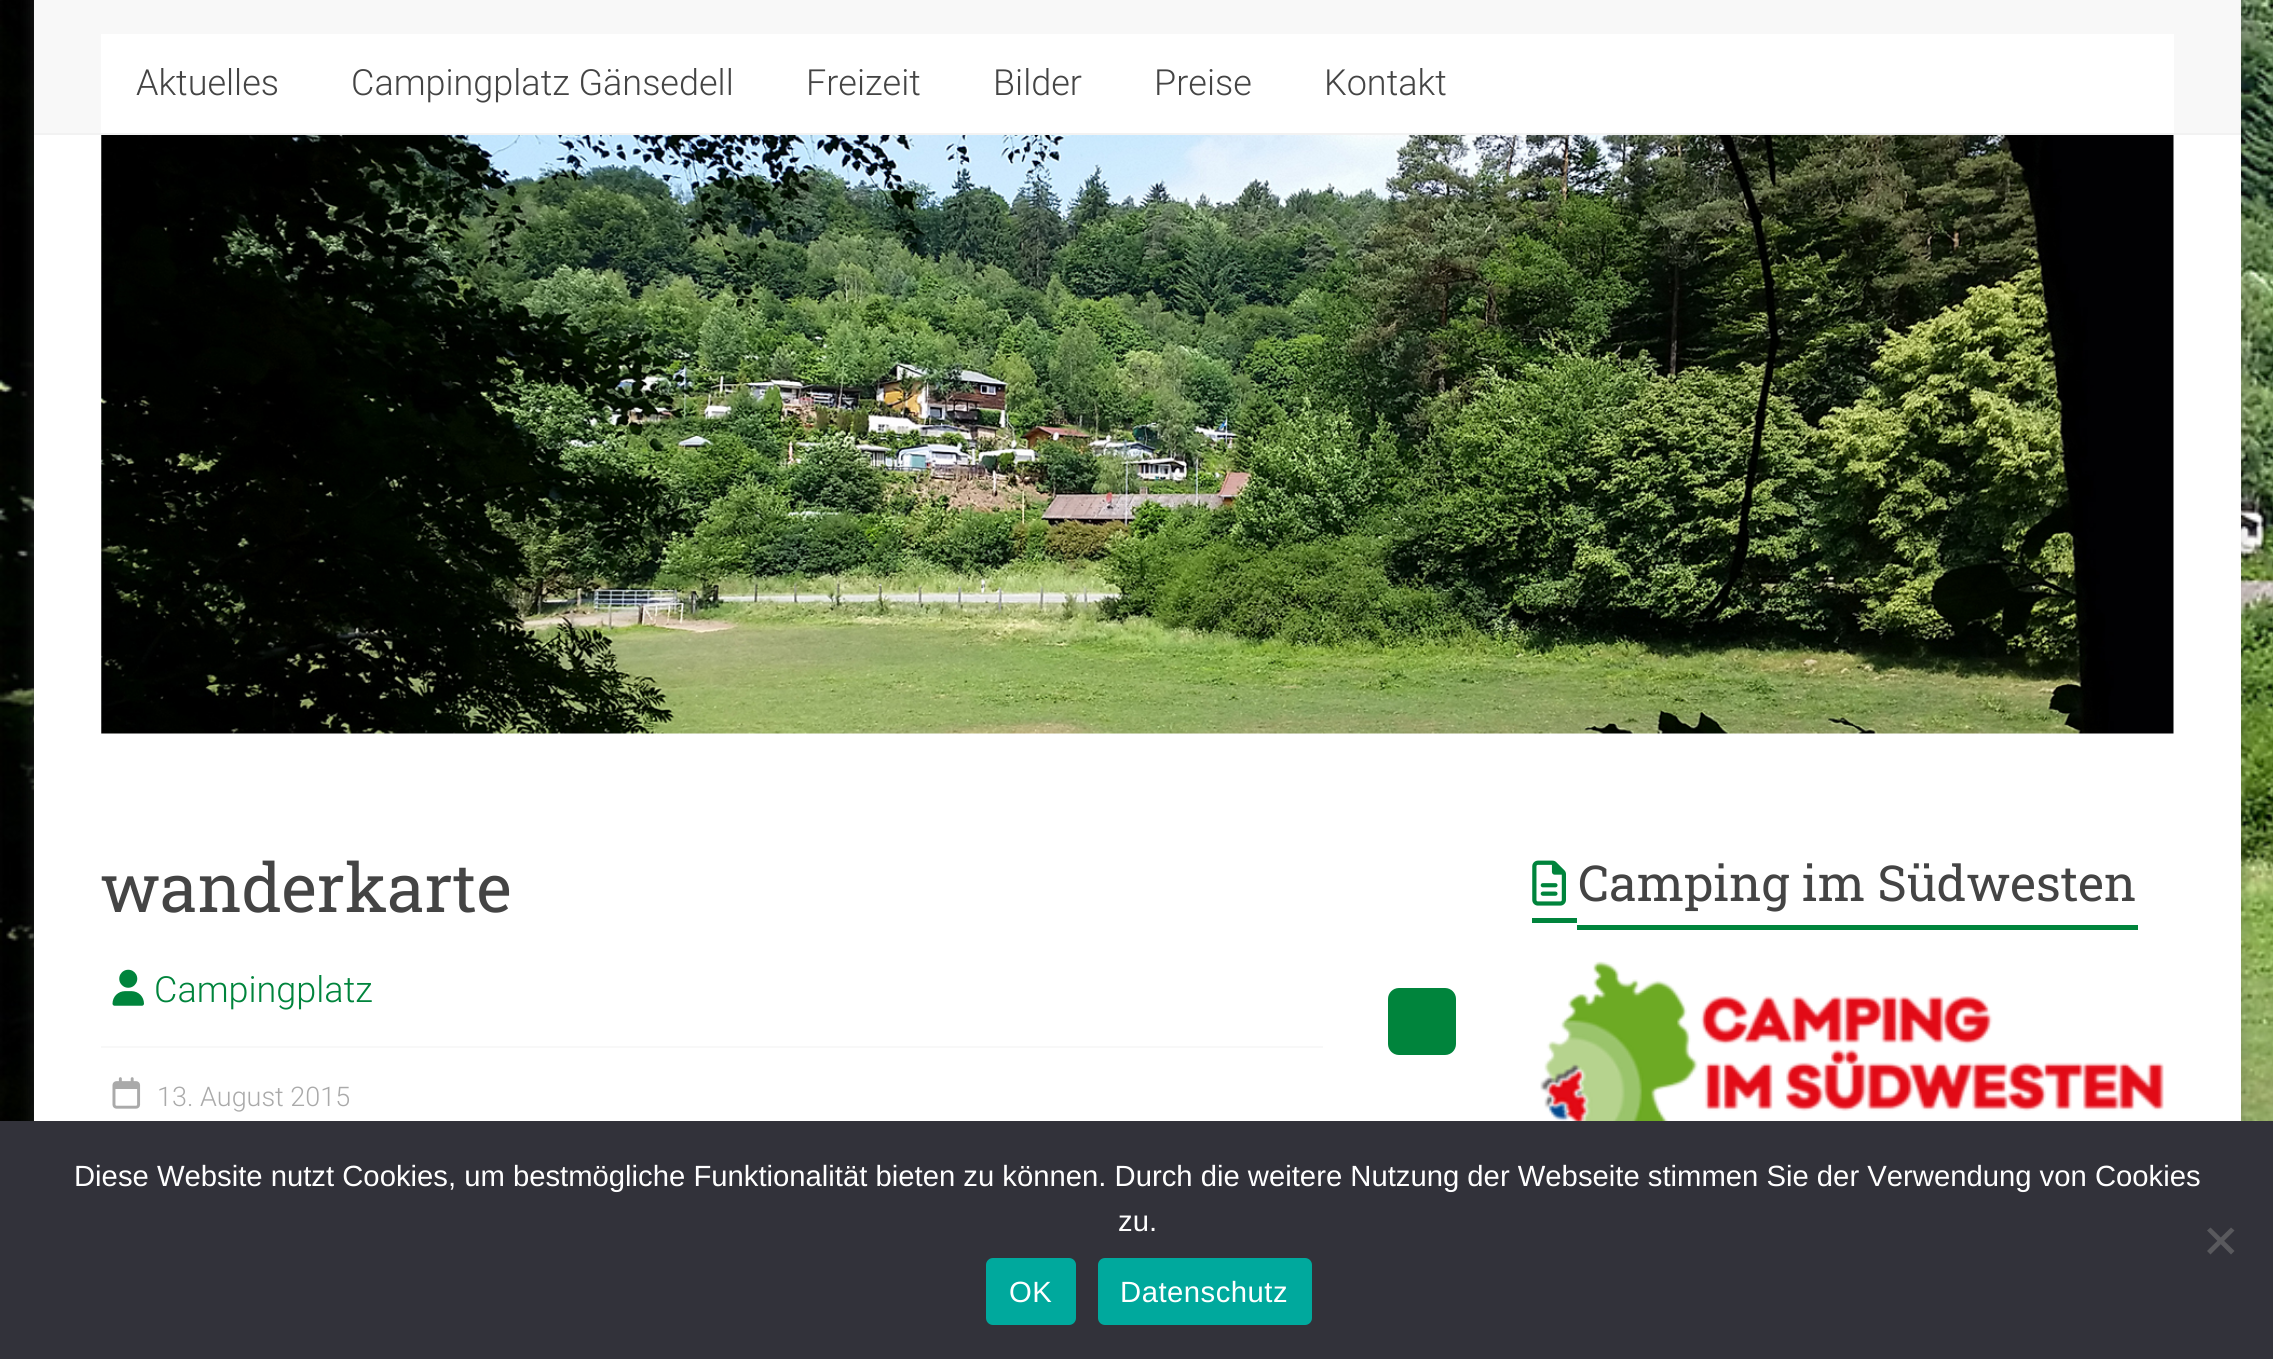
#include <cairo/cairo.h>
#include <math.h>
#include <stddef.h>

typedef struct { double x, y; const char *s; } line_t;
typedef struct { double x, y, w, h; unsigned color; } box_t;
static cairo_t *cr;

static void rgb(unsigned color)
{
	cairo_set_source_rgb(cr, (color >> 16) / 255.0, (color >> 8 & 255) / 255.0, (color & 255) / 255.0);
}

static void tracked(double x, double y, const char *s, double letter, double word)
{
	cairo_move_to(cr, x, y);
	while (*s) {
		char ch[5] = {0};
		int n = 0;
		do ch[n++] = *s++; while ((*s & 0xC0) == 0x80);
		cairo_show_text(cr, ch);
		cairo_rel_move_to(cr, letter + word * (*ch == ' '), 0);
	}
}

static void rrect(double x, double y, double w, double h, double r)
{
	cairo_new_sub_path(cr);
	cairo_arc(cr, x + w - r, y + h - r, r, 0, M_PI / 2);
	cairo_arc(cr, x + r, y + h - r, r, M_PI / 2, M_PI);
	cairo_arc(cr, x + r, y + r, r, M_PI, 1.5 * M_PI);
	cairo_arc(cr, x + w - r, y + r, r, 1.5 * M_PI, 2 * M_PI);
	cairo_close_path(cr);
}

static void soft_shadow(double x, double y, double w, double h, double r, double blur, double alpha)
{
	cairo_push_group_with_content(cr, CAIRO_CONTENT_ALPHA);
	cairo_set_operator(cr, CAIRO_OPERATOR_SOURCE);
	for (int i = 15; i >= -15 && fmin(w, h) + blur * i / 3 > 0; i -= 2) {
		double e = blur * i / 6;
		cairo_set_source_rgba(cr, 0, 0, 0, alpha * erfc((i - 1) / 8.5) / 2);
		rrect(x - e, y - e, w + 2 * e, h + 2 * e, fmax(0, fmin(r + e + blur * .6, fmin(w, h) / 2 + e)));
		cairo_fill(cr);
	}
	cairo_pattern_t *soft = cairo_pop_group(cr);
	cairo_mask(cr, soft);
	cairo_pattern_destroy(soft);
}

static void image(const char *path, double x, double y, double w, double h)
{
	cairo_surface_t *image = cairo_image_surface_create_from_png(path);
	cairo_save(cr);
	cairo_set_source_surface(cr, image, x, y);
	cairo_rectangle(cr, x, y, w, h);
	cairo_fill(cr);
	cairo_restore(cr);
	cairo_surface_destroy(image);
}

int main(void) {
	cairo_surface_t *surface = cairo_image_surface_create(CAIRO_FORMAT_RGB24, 2273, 1359);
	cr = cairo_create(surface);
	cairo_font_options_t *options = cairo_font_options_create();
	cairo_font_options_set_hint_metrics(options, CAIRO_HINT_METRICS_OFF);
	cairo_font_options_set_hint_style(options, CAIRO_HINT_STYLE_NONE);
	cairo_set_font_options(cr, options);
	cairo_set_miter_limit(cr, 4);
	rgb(0xffffff);
	cairo_paint(cr);
	image("img/1.png", 0, 0, 2273, 1121);
	rgb(0x646464);
	soft_shadow(34, -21, 2207, 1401, 0, 7, 0.3);
	{
		static const box_t items[] = {
			{34, 135, 2207, 986, 0xffffff},
			{34, 0, 2207, 133, 0xf8f8f8},
			{34, 133, 2207, 2, 0xf2f2f2},
			{101, 34, 2073, 99, 0xffffff},
		};
		for (size_t i = 0; i < sizeof items / sizeof *items; i++) {
			rgb(items[i].color);
			cairo_rectangle(cr, items[i].x, items[i].y, items[i].w, items[i].h);
			cairo_fill(cr);
		}
	}
	image("img/2.png", 101, 135, 2073, 599);
	image("img/3.png", 112, 969, 32, 37);
	rgb(0xf8f8f8);
	cairo_rectangle(cr, 101, 1046, 1222, 2);
	cairo_fill(cr);
	rgb(0x00843c);
	rrect(1388, 988, 68, 67, 11);
	cairo_fill(cr);
	image("img/4.png", 112, 1077, 29, 32);
	image("img/5.png", 1532, 860, 34, 46);
	cairo_rectangle(cr, 1532, 918, 45, 5);
	cairo_fill(cr);
	cairo_rectangle(cr, 1577, 925, 561, 5);
	cairo_fill(cr);
	image("img/6.png", 1540, 961, 624, 160);
	rgb(0x32323a);
	cairo_rectangle(cr, 0, 1121, 2273, 238);
	cairo_fill(cr);
	rgb(0x59595d);
	cairo_new_path(cr);
	cairo_move_to(cr, 2231, 1227.5);
	cairo_line_to(cr, 2234.5, 1230.5);
	cairo_line_to(cr, 2210.5, 1254.5);
	cairo_line_to(cr, 2207, 1251);
	cairo_close_path(cr);
	cairo_fill(cr);
	cairo_new_path(cr);
	cairo_move_to(cr, 2207, 1230.5);
	cairo_line_to(cr, 2210.5, 1227.5);
	cairo_line_to(cr, 2234.5, 1251);
	cairo_line_to(cr, 2231, 1254.5);
	cairo_close_path(cr);
	cairo_fill(cr);
	rgb(0x00a99d);
	rrect(986, 1258, 90, 67, 7);
	cairo_fill(cr);
	rrect(1098, 1258, 214, 67, 7);
	cairo_fill(cr);
	cairo_select_font_face(cr, "Roboto Light", CAIRO_FONT_SLANT_NORMAL, CAIRO_FONT_WEIGHT_NORMAL);
	cairo_set_font_size(cr, 36);
	rgb(0x444444);
	{
		static const line_t items[] = {
			{136, 95, "Aktuelles"},
			{351, 95, "Campingplatz Gänsedell"},
			{806, 95, "Freizeit"},
			{993, 95, "Bilder"},
			{1154, 95, "Preise"},
			{1324, 95, "Kontakt"},
		};
		for (size_t i = 0; i < sizeof items / sizeof *items; i++) {
			cairo_move_to(cr, items[i].x, items[i].y);
			cairo_show_text(cr, items[i].s);
		}
	}
	cairo_select_font_face(cr, "Roboto Slab", CAIRO_FONT_SLANT_NORMAL, CAIRO_FONT_WEIGHT_NORMAL);
	cairo_set_font_size(cr, 67.5);
	cairo_move_to(cr, 100, 912);
	cairo_show_text(cr, "wanderkarte");
	cairo_select_font_face(cr, "Roboto Light", CAIRO_FONT_SLANT_NORMAL, CAIRO_FONT_WEIGHT_NORMAL);
	cairo_set_font_size(cr, 36);
	rgb(0x00843c);
	cairo_move_to(cr, 154, 1002);
	cairo_show_text(cr, "Campingplatz");
	cairo_set_font_size(cr, 27);
	rgb(0xaaaaaa);
	cairo_move_to(cr, 157, 1106);
	cairo_show_text(cr, "13. August 2015");
	cairo_select_font_face(cr, "Roboto Slab", CAIRO_FONT_SLANT_NORMAL, CAIRO_FONT_WEIGHT_NORMAL);
	cairo_set_font_size(cr, 49.5);
	rgb(0x444444);
	cairo_move_to(cr, 1578, 901);
	cairo_show_text(cr, "Camping im Südwesten");
	cairo_select_font_face(cr, "Liberation Sans", CAIRO_FONT_SLANT_NORMAL, CAIRO_FONT_WEIGHT_NORMAL);
	cairo_set_font_size(cr, 29.25);
	rgb(0xffffff);
	cairo_move_to(cr, 74, 1186);
	cairo_show_text(cr, "Diese Website nutzt Cookies, um bestmögliche Funktionalität bieten zu können. Durch die weitere Nutzung der Webseite stimmen Sie der Verwendung von Cookies");
	cairo_move_to(cr, 1118, 1231);
	cairo_show_text(cr, "zu.");
	tracked(1009, 1302, "OK", 0.5, 0);
	tracked(1120, 1302, "Datenschutz", 0.5, 0);
	cairo_surface_write_to_png(surface, "page.png");
	cairo_font_options_destroy(options);
	cairo_destroy(cr);
	cairo_surface_destroy(surface);
	return 0;
}
